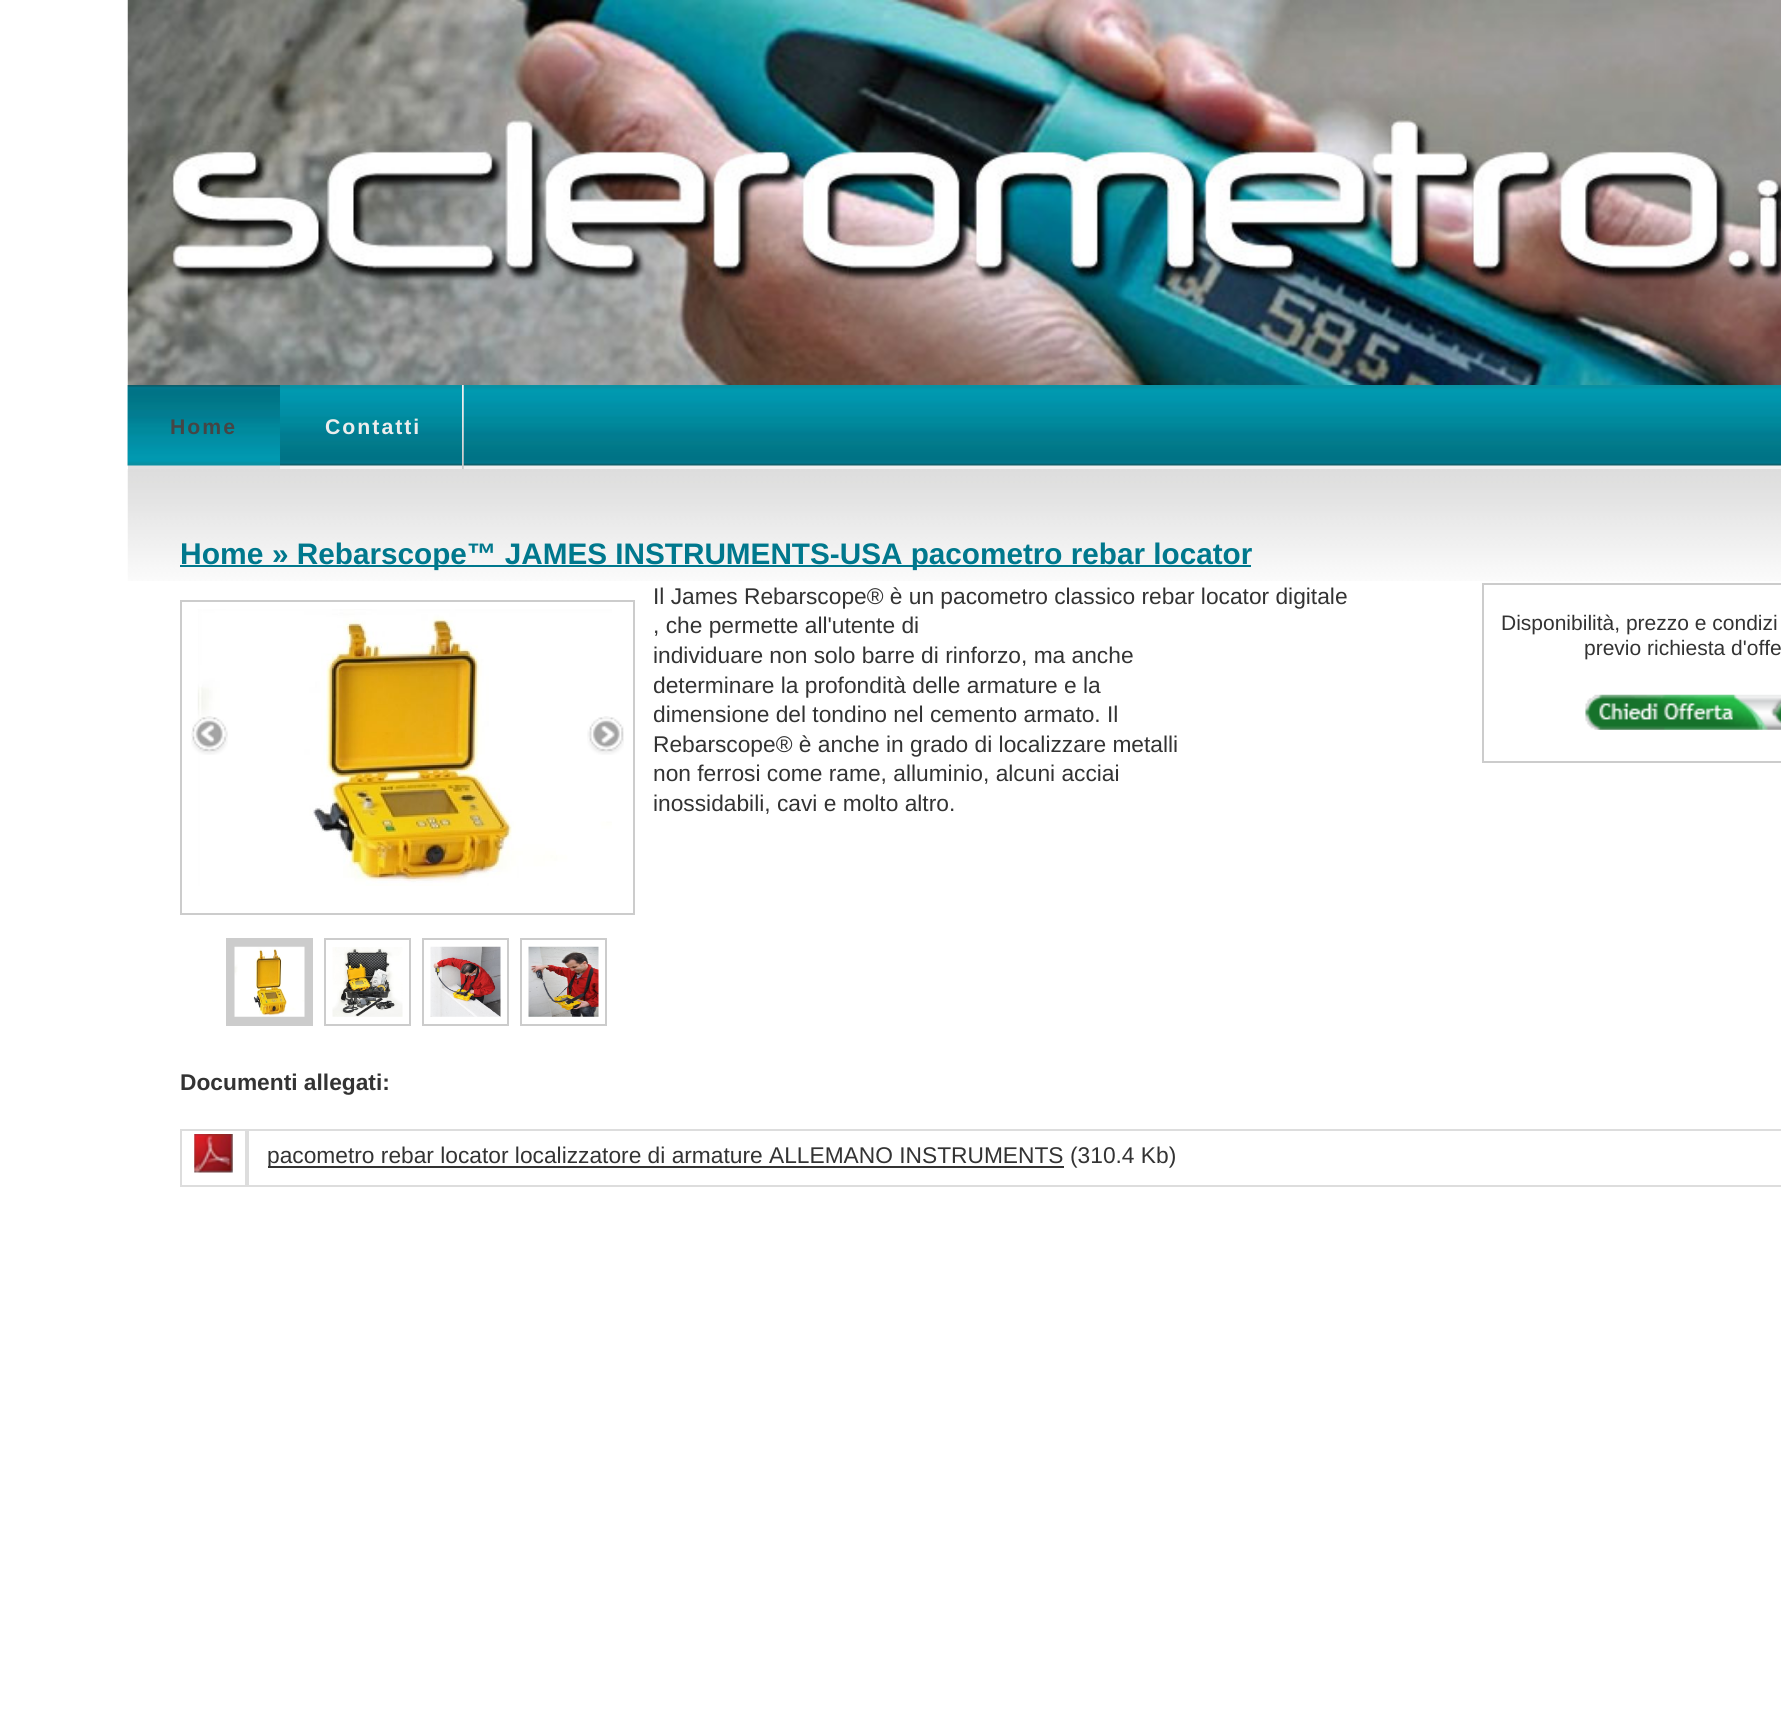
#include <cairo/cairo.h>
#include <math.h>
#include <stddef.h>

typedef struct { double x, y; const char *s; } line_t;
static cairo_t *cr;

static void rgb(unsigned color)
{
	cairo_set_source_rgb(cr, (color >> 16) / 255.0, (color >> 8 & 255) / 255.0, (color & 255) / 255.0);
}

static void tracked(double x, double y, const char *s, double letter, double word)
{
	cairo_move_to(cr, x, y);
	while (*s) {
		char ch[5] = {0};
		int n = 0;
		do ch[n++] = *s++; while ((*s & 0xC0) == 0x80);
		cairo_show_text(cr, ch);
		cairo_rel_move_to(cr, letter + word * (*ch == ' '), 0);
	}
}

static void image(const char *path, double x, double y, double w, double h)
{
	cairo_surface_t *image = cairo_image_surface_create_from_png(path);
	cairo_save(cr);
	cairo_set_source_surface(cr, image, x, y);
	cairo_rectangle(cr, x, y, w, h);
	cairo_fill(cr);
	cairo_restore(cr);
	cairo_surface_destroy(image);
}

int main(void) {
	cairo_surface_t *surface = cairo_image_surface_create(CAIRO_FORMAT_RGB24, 1781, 1709);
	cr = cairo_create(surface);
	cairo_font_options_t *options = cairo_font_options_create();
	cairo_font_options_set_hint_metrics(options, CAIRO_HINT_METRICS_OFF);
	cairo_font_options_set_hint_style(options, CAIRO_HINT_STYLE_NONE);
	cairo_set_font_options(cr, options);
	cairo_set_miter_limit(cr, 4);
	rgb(0xffffff);
	cairo_paint(cr);
	image("img/1.png", 127, 0, 1654, 385);
	rgb(0xf0f0f0);
	cairo_rectangle(cr, 280, 465, 1501, 4);
	cairo_fill(cr);
	image("img/2.png", 127, 385, 1654, 81);
	rgb(0xe0e0e0);
	cairo_rectangle(cr, 128, 465, 152, 4);
	cairo_fill(cr);
	image("img/3.png", 127, 385, 153, 81);
	image("img/4.png", 462, 385, 2, 84);
	image("img/5.png", 127, 469, 1654, 112);
	rgb(0x00788d);
	cairo_rectangle(cr, 180, 565, 1071, 2);
	cairo_fill(cr);
	cairo_rectangle(cr, 181, 601, 453, 313);
	rgb(0xcccccc);
	cairo_stroke(cr);
	image("img/6.png", 197, 609, 415, 277);
	image("img/7.png", 191, 716, 37, 39);
	image("img/8.png", 587, 716, 37, 39);
	cairo_rectangle(cr, 226, 938, 87, 88);
	cairo_fill(cr);
	image("img/9.png", 234, 946, 71, 71);
	cairo_rectangle(cr, 325, 939, 85, 86);
	cairo_stroke(cr);
	image("img/10.png", 332, 947, 71, 70);
	cairo_rectangle(cr, 423, 939, 85, 86);
	cairo_stroke(cr);
	image("img/11.png", 430, 946, 71, 71);
	cairo_rectangle(cr, 521, 939, 85, 86);
	cairo_stroke(cr);
	image("img/12.png", 528, 946, 71, 71);
	cairo_rectangle(cr, 1483, 584, 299, 178);
	cairo_stroke(cr);
	image("img/13.png", 1585, 694, 196, 36);
	cairo_rectangle(cr, 181, 1130, 65, 56);
	rgb(0xdddddd);
	cairo_stroke(cr);
	image("img/14.png", 194, 1134, 39, 39);
	cairo_rectangle(cr, 248, 1130, 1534, 56);
	cairo_stroke(cr);
	rgb(0x333333);
	cairo_rectangle(cr, 268, 1166, 796, 2);
	cairo_fill(cr);
	cairo_select_font_face(cr, "Liberation Sans", CAIRO_FONT_SLANT_NORMAL, CAIRO_FONT_WEIGHT_BOLD);
	cairo_set_font_size(cr, 21.25);
	rgb(0x454545);
	tracked(170, 434, "Home", 2, 0);
	rgb(0xededed);
	tracked(325, 434, "Contatti", 2, 0);
	cairo_set_font_size(cr, 30);
	rgb(0x00788d);
	cairo_move_to(cr, 180, 564);
	cairo_show_text(cr, "Home");
	cairo_set_font_size(cr, 29.7);
	cairo_move_to(cr, 272, 564);
	cairo_show_text(cr, "» Rebarscope™ JAMES INSTRUMENTS-USA pacometro rebar locator");
	cairo_select_font_face(cr, "Liberation Sans", CAIRO_FONT_SLANT_NORMAL, CAIRO_FONT_WEIGHT_NORMAL);
	cairo_set_font_size(cr, 22.75);
	rgb(0x333333);
	{
		static const line_t items[] = {
			{653, 604, "Il James Rebarscope® è un pacometro classico rebar locator digitale"},
			{653, 633, ", che permette all'utente di"},
			{653, 663, "individuare non solo barre di rinforzo, ma anche"},
			{653, 693, "determinare la profondità delle armature e la"},
			{653, 722, "dimensione del tondino nel cemento armato. Il"},
			{653, 752, "Rebarscope® è anche in grado di localizzare metalli"},
			{653, 781, "non ferrosi come rame, alluminio, alcuni acciai"},
			{653, 811, "inossidabili, cavi e molto altro."},
		};
		for (size_t i = 0; i < sizeof items / sizeof *items; i++) {
			cairo_move_to(cr, items[i].x, items[i].y);
			cairo_show_text(cr, items[i].s);
		}
	}
	cairo_set_font_size(cr, 21);
	cairo_move_to(cr, 1501, 630);
	cairo_show_text(cr, "Disponibilità, prezzo e condizi");
	cairo_move_to(cr, 1584, 655);
	cairo_show_text(cr, "previo richiesta d'offe");
	cairo_select_font_face(cr, "Liberation Sans", CAIRO_FONT_SLANT_NORMAL, CAIRO_FONT_WEIGHT_BOLD);
	cairo_set_font_size(cr, 22.75);
	cairo_move_to(cr, 180, 1090);
	cairo_show_text(cr, "Documenti allegati:");
	cairo_select_font_face(cr, "Liberation Sans", CAIRO_FONT_SLANT_NORMAL, CAIRO_FONT_WEIGHT_NORMAL);
	cairo_move_to(cr, 267, 1163);
	cairo_show_text(cr, "pacometro rebar locator localizzatore di armature ALLEMANO INSTRUMENTS");
	cairo_move_to(cr, 1070, 1163);
	cairo_show_text(cr, "(310.4 Kb)");
	cairo_surface_write_to_png(surface, "page.png");
	cairo_font_options_destroy(options);
	cairo_destroy(cr);
	cairo_surface_destroy(surface);
	return 0;
}
